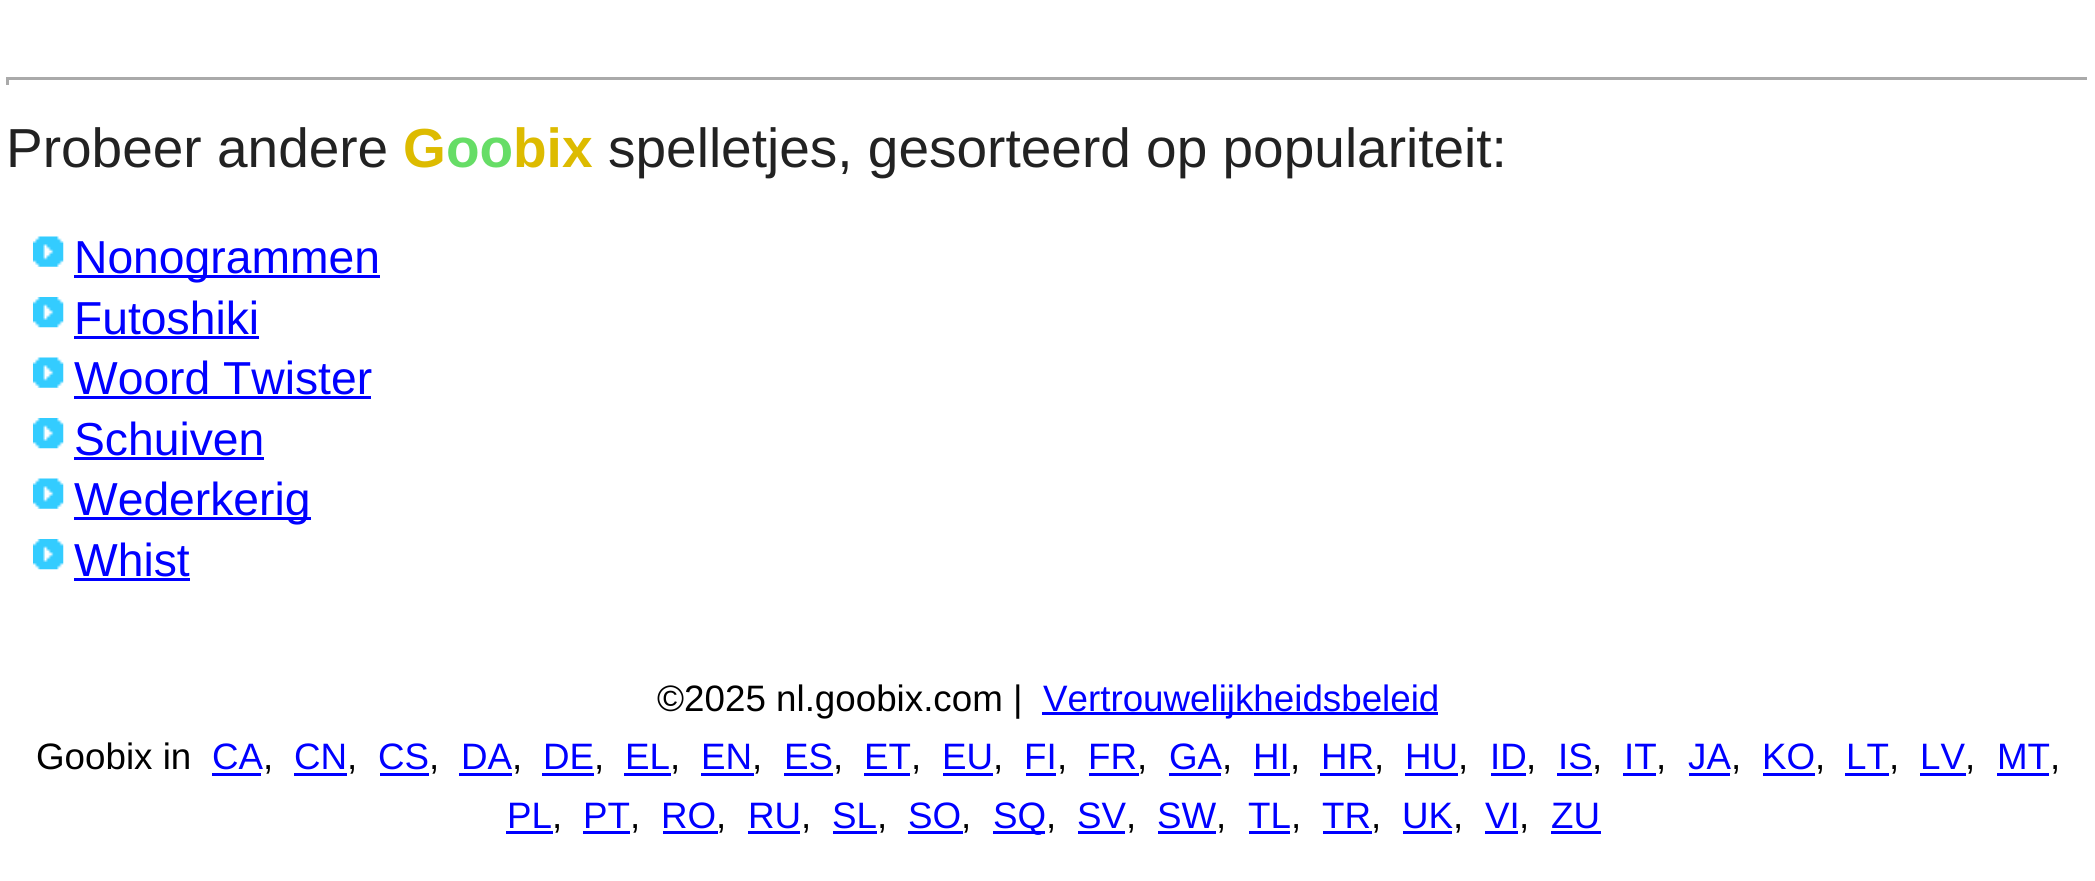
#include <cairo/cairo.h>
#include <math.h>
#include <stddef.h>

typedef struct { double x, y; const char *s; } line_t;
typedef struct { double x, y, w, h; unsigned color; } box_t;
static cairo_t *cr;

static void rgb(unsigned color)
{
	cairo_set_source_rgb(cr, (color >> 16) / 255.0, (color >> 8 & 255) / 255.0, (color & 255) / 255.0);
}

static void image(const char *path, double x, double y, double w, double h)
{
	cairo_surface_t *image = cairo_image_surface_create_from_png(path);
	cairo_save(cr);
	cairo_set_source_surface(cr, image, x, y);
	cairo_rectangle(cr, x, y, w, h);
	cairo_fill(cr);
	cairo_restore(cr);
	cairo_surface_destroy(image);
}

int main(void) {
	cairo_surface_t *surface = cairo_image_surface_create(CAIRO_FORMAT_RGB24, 2095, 881);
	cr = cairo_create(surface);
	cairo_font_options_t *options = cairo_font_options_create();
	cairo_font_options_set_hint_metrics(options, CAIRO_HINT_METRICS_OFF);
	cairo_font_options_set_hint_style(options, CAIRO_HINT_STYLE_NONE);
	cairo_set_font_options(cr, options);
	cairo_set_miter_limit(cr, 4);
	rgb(0xffffff);
	cairo_paint(cr);
	{
		static const box_t items[] = {
			{6, 77, 2084, 3, 0xaaaaaa},
			{2087, 77, 3, 8, 0xffffff},
			{6, 77, 3, 8, 0xaaaaaa},
		};
		for (size_t i = 0; i < sizeof items / sizeof *items; i++) {
			rgb(items[i].color);
			cairo_rectangle(cr, items[i].x, items[i].y, items[i].w, items[i].h);
			cairo_fill(cr);
		}
	}
	image("img/1.png", 33, 236, 31, 31);
	rgb(0x0000ff);
	cairo_rectangle(cr, 74, 275, 306, 3);
	cairo_fill(cr);
	image("img/2.png", 33, 297, 31, 31);
	cairo_rectangle(cr, 74, 336, 185, 3);
	cairo_fill(cr);
	image("img/1.png", 33, 357, 31, 31);
	cairo_rectangle(cr, 74, 396, 297, 3);
	cairo_fill(cr);
	image("img/2.png", 33, 418, 31, 31);
	cairo_rectangle(cr, 74, 457, 190, 3);
	cairo_fill(cr);
	image("img/1.png", 33, 478, 31, 31);
	cairo_rectangle(cr, 74, 517, 237, 3);
	cairo_fill(cr);
	image("img/2.png", 33, 539, 31, 31);
	{
		static const box_t items[] = {
			{74, 578, 116, 3, 0x0000ff},
			{1042, 712, 396, 3, 0x0000ff},
			{212, 773, 49, 3, 0x0000ff},
			{294, 773, 53, 3, 0x0000ff},
			{380, 773, 49, 3, 0x0000ff},
			{459, 773, 53, 3, 0x0000ff},
			{542, 773, 52, 3, 0x0000ff},
			{624, 773, 47, 3, 0x0000ff},
			{701, 773, 53, 3, 0x0000ff},
			{784, 773, 49, 3, 0x0000ff},
			{864, 773, 46, 3, 0x0000ff},
			{943, 773, 50, 3, 0x0000ff},
			{1026, 773, 30, 3, 0x0000ff},
			{1089, 773, 50, 3, 0x0000ff},
			{1169, 773, 52, 3, 0x0000ff},
			{1254, 773, 36, 3, 0x0000ff},
			{1320, 773, 55, 3, 0x0000ff},
			{1405, 773, 53, 3, 0x0000ff},
			{1491, 773, 35, 3, 0x0000ff},
			{1557, 773, 35, 3, 0x0000ff},
			{1623, 773, 33, 3, 0x0000ff},
			{1689, 773, 41, 3, 0x0000ff},
			{1763, 773, 52, 3, 0x0000ff},
			{1845, 773, 44, 3, 0x0000ff},
			{1920, 773, 46, 3, 0x0000ff},
			{1997, 773, 52, 3, 0x0000ff},
			{506, 831, 47, 3, 0x0000ff},
			{583, 831, 47, 3, 0x0000ff},
			{663, 831, 55, 3, 0x0000ff},
			{748, 831, 52, 3, 0x0000ff},
			{833, 831, 44, 3, 0x0000ff},
			{908, 831, 55, 3, 0x0000ff},
			{993, 831, 52, 3, 0x0000ff},
			{1078, 831, 47, 3, 0x0000ff},
			{1158, 831, 58, 3, 0x0000ff},
			{1249, 831, 41, 3, 0x0000ff},
			{1323, 831, 49, 3, 0x0000ff},
			{1403, 831, 49, 3, 0x0000ff},
			{1485, 831, 33, 3, 0x0000ff},
			{1551, 831, 50, 3, 0x0000ff},
		};
		for (size_t i = 0; i < sizeof items / sizeof *items; i++) {
			rgb(items[i].color);
			cairo_rectangle(cr, items[i].x, items[i].y, items[i].w, items[i].h);
			cairo_fill(cr);
		}
	}
	cairo_select_font_face(cr, "Liberation Sans", CAIRO_FONT_SLANT_NORMAL, CAIRO_FONT_WEIGHT_NORMAL);
	cairo_set_font_size(cr, 55);
	rgb(0x222222);
	cairo_move_to(cr, 6, 167);
	cairo_show_text(cr, "Probeer andere");
	cairo_select_font_face(cr, "Liberation Sans", CAIRO_FONT_SLANT_NORMAL, CAIRO_FONT_WEIGHT_BOLD);
	rgb(0xddbb00);
	cairo_move_to(cr, 403, 167);
	cairo_show_text(cr, "G");
	rgb(0x66dd66);
	cairo_move_to(cr, 446, 167);
	cairo_show_text(cr, "oo");
	rgb(0xddbb00);
	cairo_move_to(cr, 513, 167);
	cairo_show_text(cr, "bix");
	cairo_select_font_face(cr, "Liberation Sans", CAIRO_FONT_SLANT_NORMAL, CAIRO_FONT_WEIGHT_NORMAL);
	rgb(0x222222);
	cairo_move_to(cr, 608, 167);
	cairo_show_text(cr, "spelletjes, gesorteerd op populariteit:");
	cairo_set_font_size(cr, 46.25);
	rgb(0x0000ff);
	{
		static const line_t items[] = {
			{74, 273, "Nonogrammen"},
			{74, 334, "Futoshiki"},
			{74, 394, "Woord Twister"},
			{74, 455, "Schuiven"},
			{74, 515, "Wederkerig"},
			{74, 576, "Whist"},
		};
		for (size_t i = 0; i < sizeof items / sizeof *items; i++) {
			cairo_move_to(cr, items[i].x, items[i].y);
			cairo_show_text(cr, items[i].s);
		}
	}
	cairo_set_font_size(cr, 36.75);
	rgb(0x000000);
	cairo_move_to(cr, 657, 711);
	cairo_show_text(cr, "©2025 nl.goobix.com |");
	rgb(0x0000ff);
	cairo_move_to(cr, 1043, 711);
	cairo_show_text(cr, "Vertrouwelijkheidsbeleid");
	rgb(0x000000);
	cairo_move_to(cr, 36, 769);
	cairo_show_text(cr, "Goobix in");
	rgb(0x0000ff);
	cairo_move_to(cr, 212, 769);
	cairo_show_text(cr, "CA");
	rgb(0x000000);
	cairo_move_to(cr, 263, 769);
	cairo_show_text(cr, ",");
	rgb(0x0000ff);
	cairo_move_to(cr, 294, 769);
	cairo_show_text(cr, "CN");
	rgb(0x000000);
	cairo_move_to(cr, 347, 769);
	cairo_show_text(cr, ",");
	rgb(0x0000ff);
	cairo_move_to(cr, 378, 769);
	cairo_show_text(cr, "CS");
	rgb(0x000000);
	cairo_move_to(cr, 429, 769);
	cairo_show_text(cr, ",");
	rgb(0x0000ff);
	cairo_move_to(cr, 461, 769);
	cairo_show_text(cr, "DA");
	rgb(0x000000);
	cairo_move_to(cr, 512, 769);
	cairo_show_text(cr, ",");
	rgb(0x0000ff);
	cairo_move_to(cr, 543, 769);
	cairo_show_text(cr, "DE");
	rgb(0x000000);
	cairo_move_to(cr, 594, 769);
	cairo_show_text(cr, ",");
	rgb(0x0000ff);
	cairo_move_to(cr, 625, 769);
	cairo_show_text(cr, "EL");
	rgb(0x000000);
	cairo_move_to(cr, 670, 769);
	cairo_show_text(cr, ",");
	rgb(0x0000ff);
	cairo_move_to(cr, 701, 769);
	cairo_show_text(cr, "EN");
	rgb(0x000000);
	cairo_move_to(cr, 752, 769);
	cairo_show_text(cr, ",");
	rgb(0x0000ff);
	cairo_move_to(cr, 784, 769);
	cairo_show_text(cr, "ES");
	rgb(0x000000);
	cairo_move_to(cr, 833, 769);
	cairo_show_text(cr, ",");
	rgb(0x0000ff);
	cairo_move_to(cr, 864, 769);
	cairo_show_text(cr, "ET");
	rgb(0x000000);
	cairo_move_to(cr, 911, 769);
	cairo_show_text(cr, ",");
	rgb(0x0000ff);
	cairo_move_to(cr, 942, 769);
	cairo_show_text(cr, "EU");
	rgb(0x000000);
	cairo_move_to(cr, 993, 769);
	cairo_show_text(cr, ",");
	rgb(0x0000ff);
	cairo_move_to(cr, 1024, 769);
	cairo_show_text(cr, "FI");
	rgb(0x000000);
	cairo_move_to(cr, 1057, 769);
	cairo_show_text(cr, ",");
	rgb(0x0000ff);
	cairo_move_to(cr, 1088, 769);
	cairo_show_text(cr, "FR");
	rgb(0x000000);
	cairo_move_to(cr, 1137, 769);
	cairo_show_text(cr, ",");
	rgb(0x0000ff);
	cairo_move_to(cr, 1169, 769);
	cairo_show_text(cr, "GA");
	rgb(0x000000);
	cairo_move_to(cr, 1222, 769);
	cairo_show_text(cr, ",");
	rgb(0x0000ff);
	cairo_move_to(cr, 1253, 769);
	cairo_show_text(cr, "HI");
	rgb(0x000000);
	cairo_move_to(cr, 1290, 769);
	cairo_show_text(cr, ",");
	rgb(0x0000ff);
	cairo_move_to(cr, 1321, 769);
	cairo_show_text(cr, "HR");
	rgb(0x000000);
	cairo_move_to(cr, 1374, 769);
	cairo_show_text(cr, ",");
	rgb(0x0000ff);
	cairo_move_to(cr, 1405, 769);
	cairo_show_text(cr, "HU");
	rgb(0x000000);
	cairo_move_to(cr, 1458, 769);
	cairo_show_text(cr, ",");
	rgb(0x0000ff);
	cairo_move_to(cr, 1490, 769);
	cairo_show_text(cr, "ID");
	rgb(0x000000);
	cairo_move_to(cr, 1526, 769);
	cairo_show_text(cr, ",");
	rgb(0x0000ff);
	cairo_move_to(cr, 1558, 769);
	cairo_show_text(cr, "IS");
	rgb(0x000000);
	cairo_move_to(cr, 1592, 769);
	cairo_show_text(cr, ",");
	rgb(0x0000ff);
	cairo_move_to(cr, 1624, 769);
	cairo_show_text(cr, "IT");
	rgb(0x000000);
	cairo_move_to(cr, 1656, 769);
	cairo_show_text(cr, ",");
	rgb(0x0000ff);
	cairo_move_to(cr, 1688, 769);
	cairo_show_text(cr, "JA");
	rgb(0x000000);
	cairo_move_to(cr, 1731, 769);
	cairo_show_text(cr, ",");
	rgb(0x0000ff);
	cairo_move_to(cr, 1762, 769);
	cairo_show_text(cr, "KO");
	rgb(0x000000);
	cairo_move_to(cr, 1815, 769);
	cairo_show_text(cr, ",");
	rgb(0x0000ff);
	cairo_move_to(cr, 1846, 769);
	cairo_show_text(cr, "LT");
	rgb(0x000000);
	cairo_move_to(cr, 1889, 769);
	cairo_show_text(cr, ",");
	rgb(0x0000ff);
	cairo_move_to(cr, 1920, 769);
	cairo_show_text(cr, "LV");
	rgb(0x000000);
	cairo_move_to(cr, 1965, 769);
	cairo_show_text(cr, ",");
	rgb(0x0000ff);
	cairo_move_to(cr, 1997, 769);
	cairo_show_text(cr, "MT");
	rgb(0x000000);
	cairo_move_to(cr, 2050, 769);
	cairo_show_text(cr, ",");
	rgb(0x0000ff);
	cairo_move_to(cr, 507, 828);
	cairo_show_text(cr, "PL");
	rgb(0x000000);
	cairo_move_to(cr, 552, 828);
	cairo_show_text(cr, ",");
	rgb(0x0000ff);
	cairo_move_to(cr, 583, 828);
	cairo_show_text(cr, "PT");
	rgb(0x000000);
	cairo_move_to(cr, 630, 828);
	cairo_show_text(cr, ",");
	rgb(0x0000ff);
	cairo_move_to(cr, 661, 828);
	cairo_show_text(cr, "RO");
	rgb(0x000000);
	cairo_move_to(cr, 716, 828);
	cairo_show_text(cr, ",");
	rgb(0x0000ff);
	cairo_move_to(cr, 748, 828);
	cairo_show_text(cr, "RU");
	rgb(0x000000);
	cairo_move_to(cr, 801, 828);
	cairo_show_text(cr, ",");
	rgb(0x0000ff);
	cairo_move_to(cr, 832, 828);
	cairo_show_text(cr, "SL");
	rgb(0x000000);
	cairo_move_to(cr, 877, 828);
	cairo_show_text(cr, ",");
	rgb(0x0000ff);
	cairo_move_to(cr, 908, 828);
	cairo_show_text(cr, "SO");
	rgb(0x000000);
	cairo_move_to(cr, 961, 828);
	cairo_show_text(cr, ",");
	rgb(0x0000ff);
	cairo_move_to(cr, 993, 828);
	cairo_show_text(cr, "SQ");
	rgb(0x000000);
	cairo_move_to(cr, 1046, 828);
	cairo_show_text(cr, ",");
	rgb(0x0000ff);
	cairo_move_to(cr, 1077, 828);
	cairo_show_text(cr, "SV");
	rgb(0x000000);
	cairo_move_to(cr, 1126, 828);
	cairo_show_text(cr, ",");
	rgb(0x0000ff);
	cairo_move_to(cr, 1157, 828);
	cairo_show_text(cr, "SW");
	rgb(0x000000);
	cairo_move_to(cr, 1216, 828);
	cairo_show_text(cr, ",");
	rgb(0x0000ff);
	cairo_move_to(cr, 1248, 828);
	cairo_show_text(cr, "TL");
	rgb(0x000000);
	cairo_move_to(cr, 1291, 828);
	cairo_show_text(cr, ",");
	rgb(0x0000ff);
	cairo_move_to(cr, 1322, 828);
	cairo_show_text(cr, "TR");
	rgb(0x000000);
	cairo_move_to(cr, 1371, 828);
	cairo_show_text(cr, ",");
	rgb(0x0000ff);
	cairo_move_to(cr, 1402, 828);
	cairo_show_text(cr, "UK");
	rgb(0x000000);
	cairo_move_to(cr, 1453, 828);
	cairo_show_text(cr, ",");
	rgb(0x0000ff);
	cairo_move_to(cr, 1485, 828);
	cairo_show_text(cr, "VI");
	rgb(0x000000);
	cairo_move_to(cr, 1519, 828);
	cairo_show_text(cr, ",");
	rgb(0x0000ff);
	cairo_move_to(cr, 1551, 828);
	cairo_show_text(cr, "ZU");
	cairo_surface_write_to_png(surface, "page.png");
	cairo_font_options_destroy(options);
	cairo_destroy(cr);
	cairo_surface_destroy(surface);
	return 0;
}
